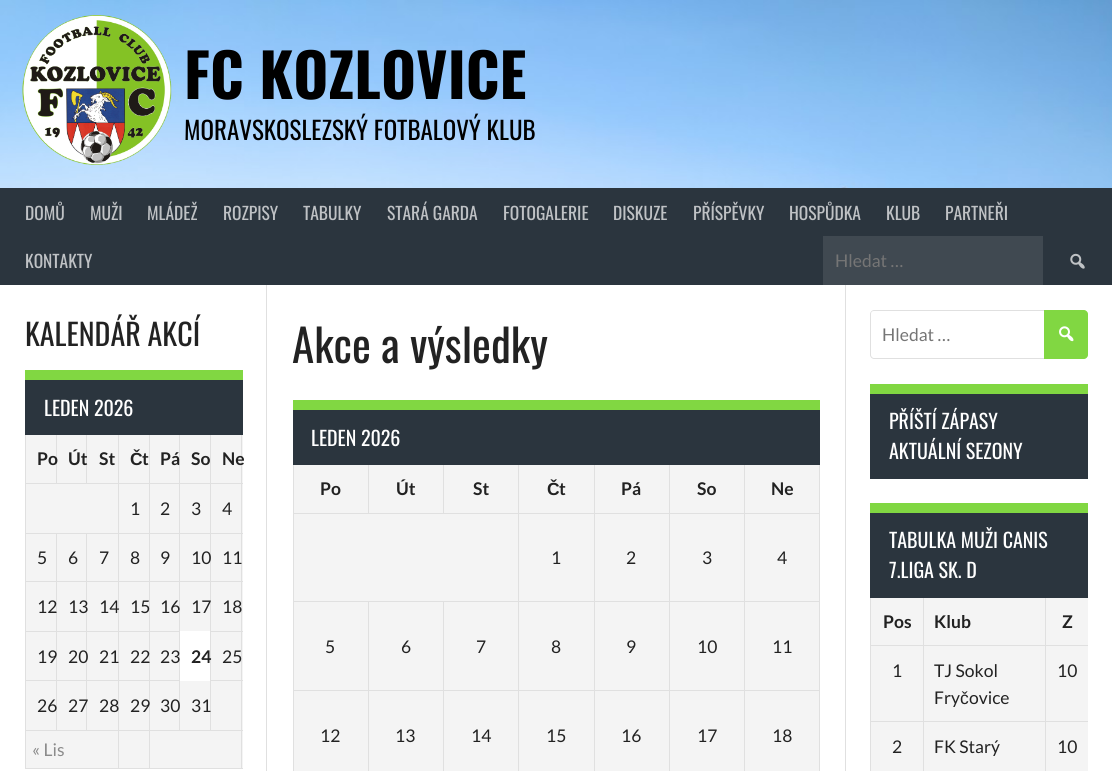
#include <cairo/cairo.h>
#include <math.h>
#include <stddef.h>

typedef struct { double x, y; const char *s; } line_t;
typedef struct { double x, y, w, h; unsigned color; } box_t;
static cairo_t *cr;

static void rgb(unsigned color)
{
	cairo_set_source_rgb(cr, (color >> 16) / 255.0, (color >> 8 & 255) / 255.0, (color & 255) / 255.0);
}

static void image(const char *path, double x, double y, double w, double h)
{
	cairo_surface_t *image = cairo_image_surface_create_from_png(path);
	cairo_save(cr);
	cairo_set_source_surface(cr, image, x, y);
	cairo_rectangle(cr, x, y, w, h);
	cairo_fill(cr);
	cairo_restore(cr);
	cairo_surface_destroy(image);
}

int main(void) {
	cairo_surface_t *surface = cairo_image_surface_create(CAIRO_FORMAT_RGB24, 1112, 771);
	cr = cairo_create(surface);
	cairo_font_options_t *options = cairo_font_options_create();
	cairo_font_options_set_hint_metrics(options, CAIRO_HINT_METRICS_OFF);
	cairo_font_options_set_hint_style(options, CAIRO_HINT_STYLE_NONE);
	cairo_set_font_options(cr, options);
	cairo_set_miter_limit(cr, 4);
	rgb(0xffffff);
	cairo_paint(cr);
	image("img/1.png", 0, 0, 1112, 188);
	image("img/2.png", 22, 15, 150, 150);
	rgb(0x2b353e);
	cairo_rectangle(cr, 0, 188, 1112, 97);
	cairo_fill(cr);
	rgb(0x404951);
	cairo_rectangle(cr, 823, 236, 220, 49);
	cairo_fill(cr);
	image("img/3.png", 1070, 253, 15, 16);
	{
		static const box_t items[] = {
			{266, 285, 1, 486, 0xe0e0e0},
			{26, 435, 217, 333, 0xf4f4f4},
			{241, 435, 1, 334, 0xe0e0e0},
			{25, 768, 218, 1, 0xe0e0e0},
			{25, 435, 1, 334, 0xe0e0e0},
			{210, 483, 33, 1, 0xe0e0e0},
			{210, 533, 33, 1, 0xe0e0e0},
			{210, 581, 33, 1, 0xe0e0e0},
			{210, 631, 33, 1, 0xe0e0e0},
			{210, 680, 33, 1, 0xe0e0e0},
			{210, 730, 33, 1, 0xe0e0e0},
			{210, 680, 1, 51, 0xe0e0e0},
			{210, 631, 1, 50, 0xe0e0e0},
			{210, 581, 1, 52, 0xe0e0e0},
			{179, 581, 32, 1, 0xe0e0e0},
			{210, 533, 1, 50, 0xe0e0e0},
			{179, 533, 32, 1, 0xe0e0e0},
			{210, 483, 1, 51, 0xe0e0e0},
			{179, 483, 32, 1, 0xe0e0e0},
			{179, 730, 32, 1, 0xe0e0e0},
			{179, 680, 1, 51, 0xe0e0e0},
			{149, 680, 31, 1, 0xe0e0e0},
			{179, 631, 1, 50, 0xe0e0e0},
			{149, 631, 31, 1, 0xe0e0e0},
			{179, 581, 1, 52, 0xe0e0e0},
			{149, 581, 31, 1, 0xe0e0e0},
			{179, 533, 1, 50, 0xe0e0e0},
			{149, 533, 31, 1, 0xe0e0e0},
			{179, 483, 1, 51, 0xe0e0e0},
			{149, 483, 31, 1, 0xe0e0e0},
			{149, 730, 31, 1, 0xe0e0e0},
			{149, 680, 1, 51, 0xe0e0e0},
			{118, 680, 32, 1, 0xe0e0e0},
			{149, 631, 1, 50, 0xe0e0e0},
			{118, 631, 32, 1, 0xe0e0e0},
			{149, 581, 1, 52, 0xe0e0e0},
			{118, 581, 32, 1, 0xe0e0e0},
			{149, 533, 1, 50, 0xe0e0e0},
			{118, 533, 32, 1, 0xe0e0e0},
			{149, 483, 1, 51, 0xe0e0e0},
			{118, 483, 32, 1, 0xe0e0e0},
			{118, 730, 32, 1, 0xe0e0e0},
			{118, 680, 1, 51, 0xe0e0e0},
			{86, 680, 33, 1, 0xe0e0e0},
			{118, 631, 1, 50, 0xe0e0e0},
			{86, 631, 33, 1, 0xe0e0e0},
			{118, 581, 1, 52, 0xe0e0e0},
			{86, 581, 33, 1, 0xe0e0e0},
			{118, 533, 1, 50, 0xe0e0e0},
			{86, 533, 33, 1, 0xe0e0e0},
			{118, 483, 1, 51, 0xe0e0e0},
			{25, 483, 94, 1, 0xe0e0e0},
			{56, 434, 1, 50, 0xe0e0e0},
			{86, 434, 1, 50, 0xe0e0e0},
			{118, 434, 1, 50, 0xe0e0e0},
			{149, 434, 1, 50, 0xe0e0e0},
			{179, 434, 1, 50, 0xe0e0e0},
			{210, 434, 1, 50, 0xe0e0e0},
			{25, 380, 218, 55, 0x2b353e},
			{25, 370, 218, 10, 0x81d742},
			{86, 730, 33, 1, 0xe0e0e0},
			{86, 680, 1, 51, 0xe0e0e0},
			{56, 680, 32, 1, 0xe0e0e0},
			{86, 631, 1, 50, 0xe0e0e0},
			{56, 631, 32, 1, 0xe0e0e0},
			{86, 581, 1, 52, 0xe0e0e0},
			{56, 581, 32, 1, 0xe0e0e0},
			{86, 533, 1, 50, 0xe0e0e0},
			{56, 533, 32, 1, 0xe0e0e0},
			{56, 730, 32, 1, 0xe0e0e0},
			{56, 680, 1, 51, 0xe0e0e0},
			{25, 680, 33, 1, 0xe0e0e0},
			{56, 631, 1, 50, 0xe0e0e0},
			{25, 631, 33, 1, 0xe0e0e0},
			{56, 581, 1, 52, 0xe0e0e0},
			{25, 581, 33, 1, 0xe0e0e0},
			{56, 533, 1, 50, 0xe0e0e0},
			{25, 533, 33, 1, 0xe0e0e0},
			{180, 631, 30, 50, 0xffffff},
			{25, 730, 33, 1, 0xe0e0e0},
			{118, 730, 1, 39, 0xe0e0e0},
			{149, 730, 1, 39, 0xe0e0e0},
		};
		for (size_t i = 0; i < sizeof items / sizeof *items; i++) {
			rgb(items[i].color);
			cairo_rectangle(cr, items[i].x, items[i].y, items[i].w, items[i].h);
			cairo_fill(cr);
		}
	}
	cairo_new_path(cr);
	cairo_move_to(cr, 269, 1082);
	cairo_line_to(cr, 269, 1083);
	cairo_line_to(cr, 846, 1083);
	cairo_line_to(cr, 846, 285);
	cairo_line_to(cr, 845, 285);
	cairo_line_to(cr, 845, 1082);
	cairo_close_path(cr);
	cairo_fill(cr);
	{
		static const box_t items[] = {
			{294, 465, 525, 306, 0xf4f4f4},
			{819, 465, 1, 306, 0xe0e0e0},
			{293, 465, 1, 306, 0xe0e0e0},
			{744, 513, 76, 1, 0xe0e0e0},
			{744, 601, 76, 1, 0xe0e0e0},
			{744, 690, 76, 1, 0xe0e0e0},
			{744, 690, 1, 81, 0xe0e0e0},
			{669, 690, 76, 1, 0xe0e0e0},
			{744, 601, 1, 90, 0xe0e0e0},
			{669, 601, 76, 1, 0xe0e0e0},
			{744, 513, 1, 90, 0xe0e0e0},
			{669, 513, 76, 1, 0xe0e0e0},
			{669, 690, 1, 81, 0xe0e0e0},
			{594, 690, 76, 1, 0xe0e0e0},
			{669, 601, 1, 90, 0xe0e0e0},
			{594, 601, 76, 1, 0xe0e0e0},
			{669, 513, 1, 90, 0xe0e0e0},
			{594, 513, 76, 1, 0xe0e0e0},
			{594, 690, 1, 81, 0xe0e0e0},
			{518, 690, 77, 1, 0xe0e0e0},
			{594, 601, 1, 90, 0xe0e0e0},
			{518, 601, 77, 1, 0xe0e0e0},
			{594, 513, 1, 90, 0xe0e0e0},
			{518, 513, 77, 1, 0xe0e0e0},
			{518, 690, 1, 81, 0xe0e0e0},
			{443, 690, 76, 1, 0xe0e0e0},
			{518, 601, 1, 90, 0xe0e0e0},
			{443, 601, 76, 1, 0xe0e0e0},
			{518, 513, 1, 90, 0xe0e0e0},
			{293, 513, 226, 1, 0xe0e0e0},
			{368, 464, 1, 50, 0xe0e0e0},
			{443, 464, 1, 50, 0xe0e0e0},
			{518, 464, 1, 50, 0xe0e0e0},
			{594, 464, 1, 50, 0xe0e0e0},
			{669, 464, 1, 50, 0xe0e0e0},
			{744, 464, 1, 50, 0xe0e0e0},
			{293, 410, 527, 55, 0x2b353e},
			{293, 400, 527, 10, 0x81d742},
			{443, 690, 1, 81, 0xe0e0e0},
			{368, 690, 76, 1, 0xe0e0e0},
			{443, 601, 1, 90, 0xe0e0e0},
			{368, 601, 76, 1, 0xe0e0e0},
			{368, 690, 1, 81, 0xe0e0e0},
			{293, 690, 76, 1, 0xe0e0e0},
			{368, 601, 1, 90, 0xe0e0e0},
			{293, 601, 76, 1, 0xe0e0e0},
		};
		for (size_t i = 0; i < sizeof items / sizeof *items; i++) {
			rgb(items[i].color);
			cairo_rectangle(cr, items[i].x, items[i].y, items[i].w, items[i].h);
			cairo_fill(cr);
		}
	}
	cairo_set_fill_rule(cr, CAIRO_FILL_RULE_EVEN_ODD);
	cairo_new_path(cr);
	cairo_move_to(cr, 874, 310);
	cairo_line_to(cr, 1044, 310);
	cairo_line_to(cr, 1044, 359);
	cairo_line_to(cr, 874, 359);
	cairo_curve_to(cr, 872, 359, 870, 357, 870, 355);
	cairo_line_to(cr, 870, 314);
	cairo_curve_to(cr, 870, 312, 872, 310, 874, 310);
	cairo_close_path(cr);
	cairo_move_to(cr, 874, 311);
	cairo_line_to(cr, 1044, 311);
	cairo_line_to(cr, 1044, 358);
	cairo_line_to(cr, 874, 358);
	cairo_curve_to(cr, 872, 358, 871, 356, 871, 355);
	cairo_line_to(cr, 871, 314);
	cairo_curve_to(cr, 871, 312, 872, 311, 874, 311);
	cairo_close_path(cr);
	cairo_fill(cr);
	rgb(0x81d742);
	cairo_new_path(cr);
	cairo_move_to(cr, 1044, 310);
	cairo_line_to(cr, 1084, 310);
	cairo_curve_to(cr, 1086, 310, 1088, 312, 1088, 314);
	cairo_line_to(cr, 1088, 355);
	cairo_curve_to(cr, 1088, 357, 1086, 359, 1084, 359);
	cairo_line_to(cr, 1044, 359);
	cairo_close_path(cr);
	cairo_fill(cr);
	image("img/4.png", 1059, 326, 15, 16);
	{
		static const box_t items[] = {
			{870, 394, 218, 85, 0x2b353e},
			{870, 384, 218, 10, 0x81d742},
			{870, 596, 1, 175, 0xe0e0e0},
			{871, 598, 217, 173, 0xf4f4f4},
			{1045, 645, 43, 1, 0xe0e0e0},
			{1045, 721, 43, 1, 0xe0e0e0},
			{1045, 721, 1, 50, 0xe0e0e0},
			{923, 721, 123, 1, 0xe0e0e0},
			{1045, 645, 1, 78, 0xe0e0e0},
			{923, 645, 123, 1, 0xe0e0e0},
			{923, 721, 1, 50, 0xe0e0e0},
			{870, 721, 54, 1, 0xe0e0e0},
			{923, 645, 1, 78, 0xe0e0e0},
			{870, 645, 54, 1, 0xe0e0e0},
			{923, 596, 1, 50, 0xe0e0e0},
			{1045, 596, 1, 50, 0xe0e0e0},
			{870, 513, 218, 85, 0x2b353e},
			{870, 503, 218, 10, 0x81d742},
		};
		for (size_t i = 0; i < sizeof items / sizeof *items; i++) {
			rgb(items[i].color);
			cairo_rectangle(cr, items[i].x, items[i].y, items[i].w, items[i].h);
			cairo_fill(cr);
		}
	}
	cairo_select_font_face(cr, "Oswald", CAIRO_FONT_SLANT_NORMAL, CAIRO_FONT_WEIGHT_BOLD);
	cairo_set_font_size(cr, 60);
	rgb(0x000000);
	cairo_move_to(cr, 184, 99);
	cairo_show_text(cr, "FC KOZLOVICE");
	cairo_select_font_face(cr, "Oswald", CAIRO_FONT_SLANT_NORMAL, CAIRO_FONT_WEIGHT_NORMAL);
	cairo_set_font_size(cr, 25);
	cairo_move_to(cr, 184, 140);
	cairo_show_text(cr, "MORAVSKOSLEZSKÝ FOTBALOVÝ KLUB");
	cairo_set_font_size(cr, 17.5);
	rgb(0xbfc2c5);
	{
		static const line_t items[] = {
			{25, 220, "DOMŮ"},
			{90, 220, "MUŽI"},
			{147, 220, "MLÁDEŽ"},
			{223, 220, "ROZPISY"},
			{303, 220, "TABULKY"},
			{387, 220, "STARÁ GARDA"},
			{503, 220, "FOTOGALERIE"},
			{613, 220, "DISKUZE"},
			{693, 220, "PŘÍSPĚVKY"},
			{789, 220, "HOSPŮDKA"},
			{886, 220, "KLUB"},
			{945, 220, "PARTNEŘI"},
			{25, 268, "KONTAKTY"},
		};
		for (size_t i = 0; i < sizeof items / sizeof *items; i++) {
			cairo_move_to(cr, items[i].x, items[i].y);
			cairo_show_text(cr, items[i].s);
		}
	}
	cairo_select_font_face(cr, "Lato", CAIRO_FONT_SLANT_NORMAL, CAIRO_FONT_WEIGHT_NORMAL);
	rgb(0x757575);
	cairo_move_to(cr, 835, 267);
	cairo_show_text(cr, "Hledat …");
	cairo_select_font_face(cr, "Oswald", CAIRO_FONT_SLANT_NORMAL, CAIRO_FONT_WEIGHT_NORMAL);
	cairo_set_font_size(cr, 30);
	rgb(0x222222);
	cairo_move_to(cr, 25, 346);
	cairo_show_text(cr, "KALENDÁŘ AKCÍ");
	cairo_set_font_size(cr, 20);
	rgb(0xffffff);
	cairo_move_to(cr, 44, 416);
	cairo_show_text(cr, "LEDEN 2026");
	cairo_select_font_face(cr, "Lato", CAIRO_FONT_SLANT_NORMAL, CAIRO_FONT_WEIGHT_BOLD);
	cairo_set_font_size(cr, 17.5);
	rgb(0x222222);
	{
		static const line_t items[] = {
			{37, 465, "Po"},
			{68, 465, "Út"},
			{99, 465, "St"},
		};
		for (size_t i = 0; i < sizeof items / sizeof *items; i++) {
			cairo_move_to(cr, items[i].x, items[i].y);
			cairo_show_text(cr, items[i].s);
		}
	}
	cairo_select_font_face(cr, "Liberation Sans", CAIRO_FONT_SLANT_NORMAL, CAIRO_FONT_WEIGHT_BOLD);
	cairo_move_to(cr, 130, 465);
	cairo_show_text(cr, "Č");
	cairo_select_font_face(cr, "Lato", CAIRO_FONT_SLANT_NORMAL, CAIRO_FONT_WEIGHT_BOLD);
	{
		static const line_t items[] = {
			{142, 465, "t"},
			{160, 465, "Pá"},
			{191, 465, "So"},
			{222, 465, "Ne"},
		};
		for (size_t i = 0; i < sizeof items / sizeof *items; i++) {
			cairo_move_to(cr, items[i].x, items[i].y);
			cairo_show_text(cr, items[i].s);
		}
	}
	cairo_select_font_face(cr, "Lato", CAIRO_FONT_SLANT_NORMAL, CAIRO_FONT_WEIGHT_NORMAL);
	{
		static const line_t items[] = {
			{130, 515, "1"},
			{160, 515, "2"},
			{191, 515, "3"},
			{222, 515, "4"},
			{37, 564, "5"},
			{68, 564, "6"},
			{99, 564, "7"},
			{130, 564, "8"},
			{160, 564, "9"},
			{191, 564, "10"},
			{222, 564, "11"},
			{37, 613, "12"},
			{68, 613, "13"},
			{99, 613, "14"},
			{130, 613, "15"},
			{160, 613, "16"},
			{191, 613, "17"},
			{222, 613, "18"},
			{37, 663, "19"},
			{68, 663, "20"},
			{99, 663, "21"},
			{130, 663, "22"},
			{160, 663, "23"},
		};
		for (size_t i = 0; i < sizeof items / sizeof *items; i++) {
			cairo_move_to(cr, items[i].x, items[i].y);
			cairo_show_text(cr, items[i].s);
		}
	}
	cairo_select_font_face(cr, "Lato", CAIRO_FONT_SLANT_NORMAL, CAIRO_FONT_WEIGHT_BOLD);
	cairo_move_to(cr, 191, 663);
	cairo_show_text(cr, "24");
	cairo_select_font_face(cr, "Lato", CAIRO_FONT_SLANT_NORMAL, CAIRO_FONT_WEIGHT_NORMAL);
	{
		static const line_t items[] = {
			{222, 663, "25"},
			{37, 712, "26"},
			{68, 712, "27"},
			{99, 712, "28"},
			{130, 712, "29"},
			{160, 712, "30"},
			{191, 712, "31"},
		};
		for (size_t i = 0; i < sizeof items / sizeof *items; i++) {
			cairo_move_to(cr, items[i].x, items[i].y);
			cairo_show_text(cr, items[i].s);
		}
	}
	rgb(0x8b8b8b);
	cairo_move_to(cr, 32, 756);
	cairo_show_text(cr, "« Lis");
	cairo_select_font_face(cr, "Oswald", CAIRO_FONT_SLANT_NORMAL, CAIRO_FONT_WEIGHT_NORMAL);
	cairo_set_font_size(cr, 45);
	rgb(0x222222);
	cairo_move_to(cr, 292, 363);
	cairo_show_text(cr, "Akce a výsledky");
	cairo_set_font_size(cr, 20);
	rgb(0xffffff);
	cairo_move_to(cr, 311, 446);
	cairo_show_text(cr, "LEDEN 2026");
	cairo_select_font_face(cr, "Lato", CAIRO_FONT_SLANT_NORMAL, CAIRO_FONT_WEIGHT_BOLD);
	cairo_set_font_size(cr, 17.5);
	rgb(0x222222);
	{
		static const line_t items[] = {
			{320, 495, "Po"},
			{396, 495, "Út"},
			{473, 495, "St"},
		};
		for (size_t i = 0; i < sizeof items / sizeof *items; i++) {
			cairo_move_to(cr, items[i].x, items[i].y);
			cairo_show_text(cr, items[i].s);
		}
	}
	cairo_select_font_face(cr, "Liberation Sans", CAIRO_FONT_SLANT_NORMAL, CAIRO_FONT_WEIGHT_BOLD);
	cairo_move_to(cr, 547, 495);
	cairo_show_text(cr, "Č");
	cairo_select_font_face(cr, "Lato", CAIRO_FONT_SLANT_NORMAL, CAIRO_FONT_WEIGHT_BOLD);
	{
		static const line_t items[] = {
			{559, 495, "t"},
			{621, 495, "Pá"},
			{697, 495, "So"},
			{771, 495, "Ne"},
		};
		for (size_t i = 0; i < sizeof items / sizeof *items; i++) {
			cairo_move_to(cr, items[i].x, items[i].y);
			cairo_show_text(cr, items[i].s);
		}
	}
	cairo_select_font_face(cr, "Lato", CAIRO_FONT_SLANT_NORMAL, CAIRO_FONT_WEIGHT_NORMAL);
	{
		static const line_t items[] = {
			{551, 564, "1"},
			{626, 564, "2"},
			{702, 564, "3"},
			{777, 564, "4"},
			{325, 653, "5"},
			{401, 653, "6"},
			{476, 653, "7"},
			{551, 653, "8"},
			{626, 653, "9"},
			{697, 653, "10"},
			{772, 653, "11"},
			{320, 742, "12"},
			{395, 742, "13"},
			{471, 742, "14"},
			{546, 742, "15"},
			{621, 742, "16"},
			{697, 742, "17"},
			{772, 742, "18"},
		};
		for (size_t i = 0; i < sizeof items / sizeof *items; i++) {
			cairo_move_to(cr, items[i].x, items[i].y);
			cairo_show_text(cr, items[i].s);
		}
	}
	rgb(0x757575);
	cairo_move_to(cr, 882, 341);
	cairo_show_text(cr, "Hledat …");
	cairo_select_font_face(cr, "Oswald", CAIRO_FONT_SLANT_NORMAL, CAIRO_FONT_WEIGHT_NORMAL);
	cairo_set_font_size(cr, 20);
	rgb(0xffffff);
	{
		static const line_t items[] = {
			{889, 429, "PŘÍŠTÍ ZÁPASY"},
			{889, 459, "AKTUÁLNÍ SEZONY"},
			{889, 548, "TABULKA MUŽI CANIS"},
			{889, 578, "7.LIGA SK. D"},
		};
		for (size_t i = 0; i < sizeof items / sizeof *items; i++) {
			cairo_move_to(cr, items[i].x, items[i].y);
			cairo_show_text(cr, items[i].s);
		}
	}
	cairo_select_font_face(cr, "Lato", CAIRO_FONT_SLANT_NORMAL, CAIRO_FONT_WEIGHT_BOLD);
	cairo_set_font_size(cr, 17.5);
	rgb(0x222222);
	{
		static const line_t items[] = {
			{883, 628, "Pos"},
			{934, 628, "Klub"},
			{1062, 628, "Z"},
		};
		for (size_t i = 0; i < sizeof items / sizeof *items; i++) {
			cairo_move_to(cr, items[i].x, items[i].y);
			cairo_show_text(cr, items[i].s);
		}
	}
	cairo_select_font_face(cr, "Lato", CAIRO_FONT_SLANT_NORMAL, CAIRO_FONT_WEIGHT_NORMAL);
	{
		static const line_t items[] = {
			{892, 677, "1"},
			{934, 677, "TJ Sokol"},
			{934, 704, "Fry"},
		};
		for (size_t i = 0; i < sizeof items / sizeof *items; i++) {
			cairo_move_to(cr, items[i].x, items[i].y);
			cairo_show_text(cr, items[i].s);
		}
	}
	cairo_select_font_face(cr, "Liberation Sans", CAIRO_FONT_SLANT_NORMAL, CAIRO_FONT_WEIGHT_NORMAL);
	cairo_move_to(cr, 960, 704);
	cairo_show_text(cr, "č");
	cairo_select_font_face(cr, "Lato", CAIRO_FONT_SLANT_NORMAL, CAIRO_FONT_WEIGHT_NORMAL);
	{
		static const line_t items[] = {
			{969, 704, "ovice"},
			{1057, 677, "10"},
			{892, 753, "2"},
			{934, 753, "FK Starý"},
			{1057, 753, "10"},
		};
		for (size_t i = 0; i < sizeof items / sizeof *items; i++) {
			cairo_move_to(cr, items[i].x, items[i].y);
			cairo_show_text(cr, items[i].s);
		}
	}
	cairo_surface_write_to_png(surface, "page.png");
	cairo_font_options_destroy(options);
	cairo_destroy(cr);
	cairo_surface_destroy(surface);
	return 0;
}
